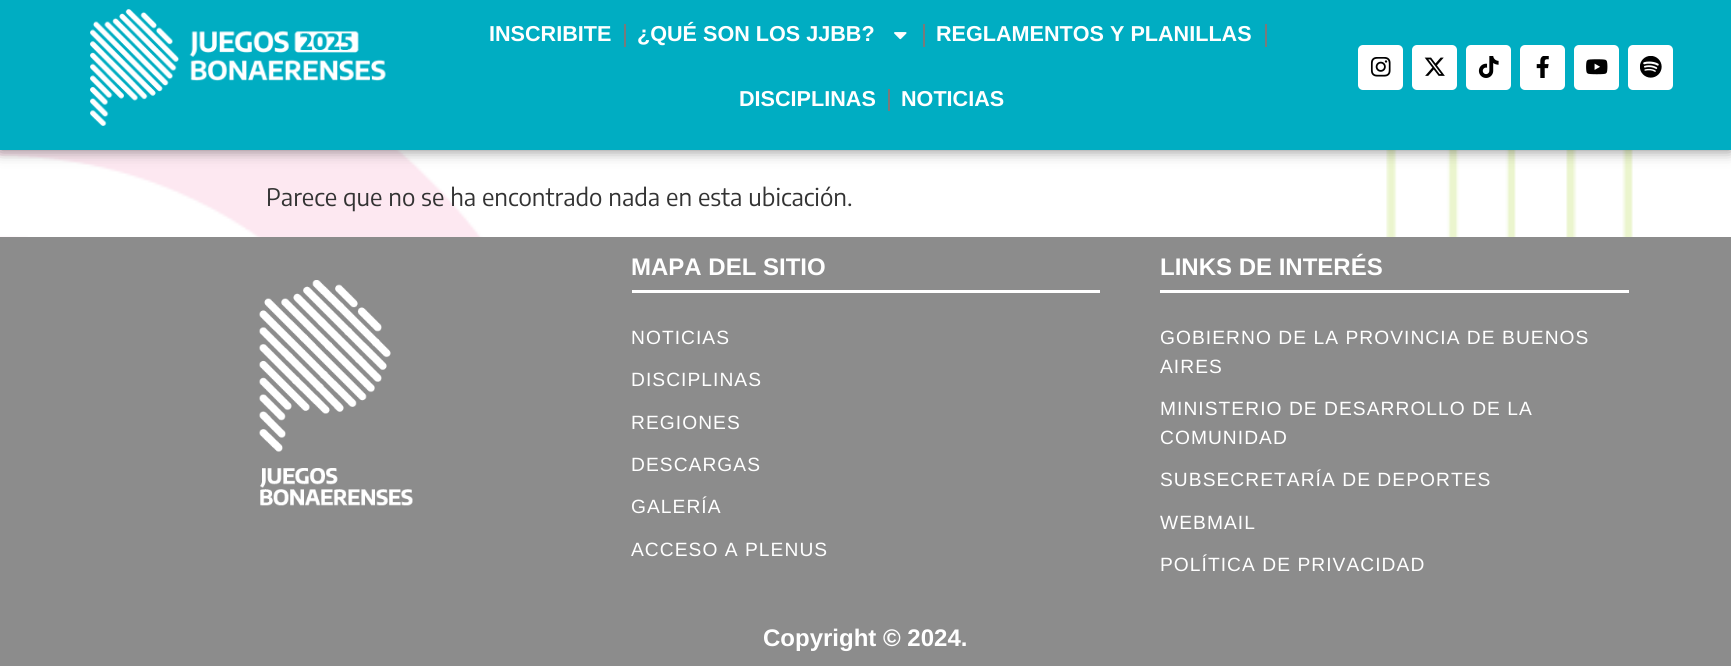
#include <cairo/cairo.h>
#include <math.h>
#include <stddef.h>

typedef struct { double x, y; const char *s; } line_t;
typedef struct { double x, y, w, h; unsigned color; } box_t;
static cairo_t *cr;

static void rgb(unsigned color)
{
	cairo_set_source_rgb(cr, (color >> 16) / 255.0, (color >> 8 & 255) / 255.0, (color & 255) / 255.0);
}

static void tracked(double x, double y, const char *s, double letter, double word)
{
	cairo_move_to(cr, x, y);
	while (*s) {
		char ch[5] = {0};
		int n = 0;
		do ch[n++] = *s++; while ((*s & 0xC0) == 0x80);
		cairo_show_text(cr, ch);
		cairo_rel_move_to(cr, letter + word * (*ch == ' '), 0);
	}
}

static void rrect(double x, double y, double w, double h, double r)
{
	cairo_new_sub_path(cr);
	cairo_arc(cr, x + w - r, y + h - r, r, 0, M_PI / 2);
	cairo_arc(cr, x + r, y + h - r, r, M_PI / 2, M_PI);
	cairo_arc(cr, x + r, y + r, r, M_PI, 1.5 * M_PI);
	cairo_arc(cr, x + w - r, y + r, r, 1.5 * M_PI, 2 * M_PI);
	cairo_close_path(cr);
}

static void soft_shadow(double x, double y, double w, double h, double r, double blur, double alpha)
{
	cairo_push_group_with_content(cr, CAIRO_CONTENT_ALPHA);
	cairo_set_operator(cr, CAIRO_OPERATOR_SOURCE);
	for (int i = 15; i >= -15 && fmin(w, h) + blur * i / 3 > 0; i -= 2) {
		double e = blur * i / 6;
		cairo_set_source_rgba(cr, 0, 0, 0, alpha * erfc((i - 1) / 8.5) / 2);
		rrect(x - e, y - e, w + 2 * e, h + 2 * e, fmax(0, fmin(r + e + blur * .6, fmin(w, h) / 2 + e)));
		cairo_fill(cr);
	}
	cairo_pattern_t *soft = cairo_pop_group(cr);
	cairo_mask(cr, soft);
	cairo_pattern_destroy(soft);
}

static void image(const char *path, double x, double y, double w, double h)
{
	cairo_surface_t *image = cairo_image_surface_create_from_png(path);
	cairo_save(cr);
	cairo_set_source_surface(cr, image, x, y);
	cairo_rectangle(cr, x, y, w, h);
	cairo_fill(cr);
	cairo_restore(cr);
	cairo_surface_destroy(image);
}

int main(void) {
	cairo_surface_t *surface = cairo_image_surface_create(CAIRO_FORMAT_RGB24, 1731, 666);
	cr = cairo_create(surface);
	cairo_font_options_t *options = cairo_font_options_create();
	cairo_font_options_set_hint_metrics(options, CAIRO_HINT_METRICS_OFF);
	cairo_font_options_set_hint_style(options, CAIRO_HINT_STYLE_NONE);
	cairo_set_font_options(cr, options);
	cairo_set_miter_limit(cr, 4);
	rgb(0xffffff);
	cairo_paint(cr);
	image("img/1.png", 0, 150, 1633, 87);
	rgb(0x000000);
	soft_shadow(0, -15, 1731, 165, 0, 7.5, 0.5);
	rgb(0x00adc2);
	cairo_rectangle(cr, 0, 0, 1731, 150);
	cairo_fill(cr);
	image("img/2.png", 90, 9, 296, 117);
	rgb(0x7a7a7a);
	cairo_rectangle(cr, 624, 24, 2, 23);
	cairo_fill(cr);
	image("img/3.png", 894, 32, 13, 8);
	{
		static const box_t items[] = {
			{923, 24, 2, 23, 0x7a7a7a},
			{1265, 24, 2, 23, 0x7a7a7a},
			{888, 89, 2, 22, 0x7a7a7a},
		};
		for (size_t i = 0; i < sizeof items / sizeof *items; i++) {
			rgb(items[i].color);
			cairo_rectangle(cr, items[i].x, items[i].y, items[i].w, items[i].h);
			cairo_fill(cr);
		}
	}
	rgb(0xffffff);
	rrect(1358, 45, 45, 45, 5);
	cairo_fill(cr);
	image("img/4.png", 1370, 57, 21, 20);
	rrect(1412, 45, 45, 45, 5);
	cairo_fill(cr);
	image("img/5.png", 1424, 57, 21, 19);
	rrect(1466, 45, 45, 45, 5);
	cairo_fill(cr);
	image("img/6.png", 1478, 56, 21, 22);
	rrect(1520, 45, 45, 45, 5);
	cairo_fill(cr);
	image("img/7.png", 1536, 56, 13, 22);
	rrect(1574, 45, 45, 45, 5);
	cairo_fill(cr);
	image("img/8.png", 1586, 59, 22, 16);
	rrect(1628, 45, 45, 45, 5);
	cairo_fill(cr);
	image("img/9.png", 1640, 56, 22, 22);
	rgb(0x8c8c8c);
	cairo_rectangle(cr, 0, 237, 1731, 429);
	cairo_fill(cr);
	image("img/10.png", 259, 280, 154, 226);
	rgb(0xffffff);
	cairo_rectangle(cr, 632, 290, 468, 3);
	cairo_fill(cr);
	cairo_rectangle(cr, 1160, 290, 469, 3);
	cairo_fill(cr);
	cairo_select_font_face(cr, "Liberation Sans", CAIRO_FONT_SLANT_NORMAL, CAIRO_FONT_WEIGHT_BOLD);
	cairo_set_font_size(cr, 21.6);
	{
		static const line_t items[] = {
			{489, 41, "INSCRIBITE"},
			{637, 41, "¿QUÉ SON LOS JJBB?"},
			{936, 41, "REGLAMENTOS Y PLANILLAS"},
			{739, 106, "DISCIPLINAS"},
			{901, 106, "NOTICIAS"},
		};
		for (size_t i = 0; i < sizeof items / sizeof *items; i++) {
			cairo_move_to(cr, items[i].x, items[i].y);
			cairo_show_text(cr, items[i].s);
		}
	}
	cairo_select_font_face(cr, "Encode Sans Condensed", CAIRO_FONT_SLANT_NORMAL, CAIRO_FONT_WEIGHT_NORMAL);
	cairo_set_font_size(cr, 24);
	rgb(0x333333);
	cairo_move_to(cr, 266, 206);
	cairo_show_text(cr, "Parece que no se ha encontrado nada en esta ubicación.");
	cairo_select_font_face(cr, "Liberation Sans", CAIRO_FONT_SLANT_NORMAL, CAIRO_FONT_WEIGHT_BOLD);
	rgb(0xffffff);
	cairo_move_to(cr, 631, 275);
	cairo_show_text(cr, "MAPA DEL SITIO");
	cairo_select_font_face(cr, "Liberation Sans", CAIRO_FONT_SLANT_NORMAL, CAIRO_FONT_WEIGHT_NORMAL);
	cairo_set_font_size(cr, 19.2);
	{
		static const line_t items[] = {
			{631, 344, "NOTICIAS"},
			{631, 386, "DISCIPLINAS"},
			{631, 429, "REGIONES"},
			{631, 471, "DESCARGAS"},
			{631, 513, "GALERÍA"},
			{631, 556, "ACCESO A PLENUS"},
		};
		for (size_t i = 0; i < sizeof items / sizeof *items; i++) {
			tracked(items[i].x, items[i].y, items[i].s, 1.05, 0);
		}
	}
	cairo_select_font_face(cr, "Liberation Sans", CAIRO_FONT_SLANT_NORMAL, CAIRO_FONT_WEIGHT_BOLD);
	cairo_set_font_size(cr, 24);
	cairo_move_to(cr, 1160, 275);
	cairo_show_text(cr, "LINKS DE INTERÉS");
	cairo_select_font_face(cr, "Liberation Sans", CAIRO_FONT_SLANT_NORMAL, CAIRO_FONT_WEIGHT_NORMAL);
	cairo_set_font_size(cr, 19.2);
	{
		static const line_t items[] = {
			{1160, 344, "GOBIERNO DE LA PROVINCIA DE BUENOS"},
			{1160, 373, "AIRES"},
			{1160, 415, "MINISTERIO DE DESARROLLO DE LA"},
			{1160, 444, "COMUNIDAD"},
			{1160, 486, "SUBSECRETARÍA DE DEPORTES"},
			{1160, 529, "WEBMAIL"},
			{1160, 571, "POLÍTICA DE PRIVACIDAD"},
		};
		for (size_t i = 0; i < sizeof items / sizeof *items; i++) {
			tracked(items[i].x, items[i].y, items[i].s, 1.05, 0);
		}
	}
	cairo_select_font_face(cr, "Liberation Sans", CAIRO_FONT_SLANT_NORMAL, CAIRO_FONT_WEIGHT_BOLD);
	cairo_set_font_size(cr, 24);
	cairo_move_to(cr, 763, 646);
	cairo_show_text(cr, "Copyright © 2024.");
	cairo_surface_write_to_png(surface, "page.png");
	cairo_font_options_destroy(options);
	cairo_destroy(cr);
	cairo_surface_destroy(surface);
	return 0;
}
